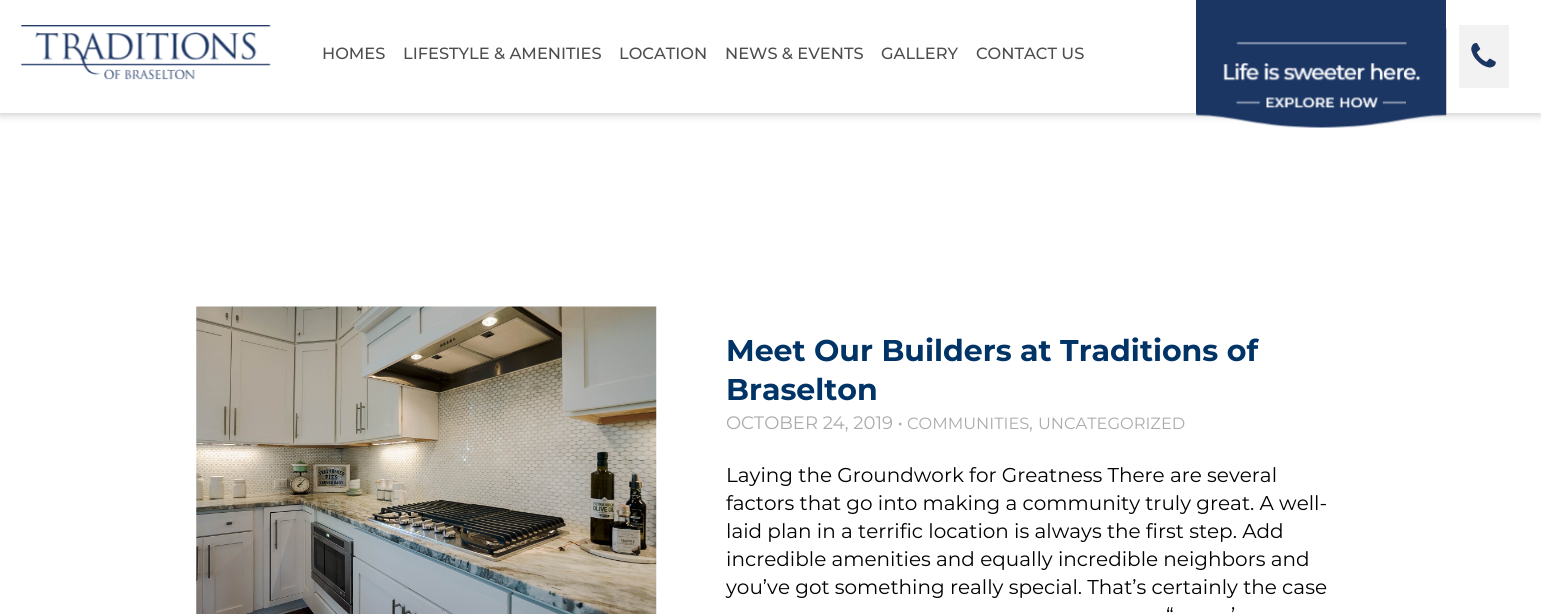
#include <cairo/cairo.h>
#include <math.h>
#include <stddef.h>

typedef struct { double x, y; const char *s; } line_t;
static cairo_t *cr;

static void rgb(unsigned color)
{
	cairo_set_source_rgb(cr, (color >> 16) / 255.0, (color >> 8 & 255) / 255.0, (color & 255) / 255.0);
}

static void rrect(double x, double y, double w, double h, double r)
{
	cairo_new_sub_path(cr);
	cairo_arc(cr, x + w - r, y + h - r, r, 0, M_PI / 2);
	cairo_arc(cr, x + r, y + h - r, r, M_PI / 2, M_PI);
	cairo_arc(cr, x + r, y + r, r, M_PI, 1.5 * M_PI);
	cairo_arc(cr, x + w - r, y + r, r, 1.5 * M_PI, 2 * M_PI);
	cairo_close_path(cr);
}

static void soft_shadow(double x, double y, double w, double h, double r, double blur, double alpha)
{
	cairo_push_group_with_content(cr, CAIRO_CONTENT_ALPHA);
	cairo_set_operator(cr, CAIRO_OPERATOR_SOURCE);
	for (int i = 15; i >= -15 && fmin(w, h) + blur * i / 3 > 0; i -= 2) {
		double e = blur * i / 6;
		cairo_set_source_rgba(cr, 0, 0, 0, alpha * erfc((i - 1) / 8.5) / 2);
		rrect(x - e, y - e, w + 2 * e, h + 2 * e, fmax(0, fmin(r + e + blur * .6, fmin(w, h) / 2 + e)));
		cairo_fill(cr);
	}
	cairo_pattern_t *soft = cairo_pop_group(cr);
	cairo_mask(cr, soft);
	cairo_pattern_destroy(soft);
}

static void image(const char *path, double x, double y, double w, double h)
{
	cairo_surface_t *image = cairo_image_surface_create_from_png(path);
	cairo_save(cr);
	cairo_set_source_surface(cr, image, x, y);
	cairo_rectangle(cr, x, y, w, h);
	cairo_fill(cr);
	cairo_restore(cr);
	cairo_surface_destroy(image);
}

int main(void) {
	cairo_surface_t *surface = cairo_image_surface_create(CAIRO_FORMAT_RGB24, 1541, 614);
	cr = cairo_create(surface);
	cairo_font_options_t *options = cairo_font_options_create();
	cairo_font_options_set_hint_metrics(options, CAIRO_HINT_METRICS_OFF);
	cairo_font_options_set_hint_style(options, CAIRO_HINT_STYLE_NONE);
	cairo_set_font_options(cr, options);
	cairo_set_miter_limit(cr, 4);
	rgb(0xffffff);
	cairo_paint(cr);
	rgb(0x000000);
	soft_shadow(0, 3, 1541, 112, 0, 4, 0.2);
	rgb(0xffffff);
	cairo_rectangle(cr, 0, 0, 1541, 113);
	cairo_fill(cr);
	image("img/1.png", 20, 25, 251, 55);
	rgb(0x1c3664);
	cairo_rectangle(cr, 1196, 0, 250, 113);
	cairo_fill(cr);
	image("img/2.png", 1196, 28, 251, 100);
	rgb(0xf2f2f2);
	cairo_rectangle(cr, 1459, 25, 50, 63);
	cairo_fill(cr);
	image("img/3.png", 1471, 43, 25, 25);
	image("img/4.png", 196, 306, 461, 308);
	cairo_select_font_face(cr, "Montserrat Medium", CAIRO_FONT_SLANT_NORMAL, CAIRO_FONT_WEIGHT_NORMAL);
	cairo_set_font_size(cr, 16.25);
	rgb(0x4d4d4d);
	{
		static const line_t items[] = {
			{322, 59, "HOMES"},
			{403, 59, "LIFESTYLE & AMENITIES"},
			{619, 59, "LOCATION"},
			{725, 59, "NEWS & EVENTS"},
			{881, 59, "GALLERY"},
			{976, 59, "CONTACT US"},
		};
		for (size_t i = 0; i < sizeof items / sizeof *items; i++) {
			cairo_move_to(cr, items[i].x, items[i].y);
			cairo_show_text(cr, items[i].s);
		}
	}
	cairo_select_font_face(cr, "Montserrat", CAIRO_FONT_SLANT_NORMAL, CAIRO_FONT_WEIGHT_BOLD);
	cairo_set_font_size(cr, 30);
	rgb(0x003366);
	cairo_move_to(cr, 726, 361);
	cairo_show_text(cr, "Meet Our Builders at Traditions of");
	cairo_move_to(cr, 726, 400);
	cairo_show_text(cr, "Braselton");
	cairo_select_font_face(cr, "Montserrat", CAIRO_FONT_SLANT_NORMAL, CAIRO_FONT_WEIGHT_NORMAL);
	cairo_set_font_size(cr, 18);
	rgb(0xaaaaaa);
	cairo_move_to(cr, 726, 429);
	cairo_show_text(cr, "OCTOBER 24, 2019 •");
	cairo_set_font_size(cr, 16.25);
	cairo_move_to(cr, 907, 429);
	cairo_show_text(cr, "COMMUNITIES");
	cairo_set_font_size(cr, 18);
	cairo_move_to(cr, 1029, 429);
	cairo_show_text(cr, ",");
	cairo_set_font_size(cr, 16.25);
	cairo_move_to(cr, 1038, 429);
	cairo_show_text(cr, "UNCATEGORIZED");
	cairo_set_font_size(cr, 20);
	rgb(0x000000);
	{
		static const line_t items[] = {
			{726, 482, "Laying the Groundwork for Greatness There are several"},
			{726, 510, "factors that go into making a community truly great. A well-"},
			{726, 538, "laid plan in a terrific location is always the first step. Add"},
			{726, 566, "incredible amenities and equally incredible neighbors and"},
			{726, 594, "you’ve got something really special. That’s certainly the case"},
			{1166, 622, "“"},
			{1231, 622, "’"},
		};
		for (size_t i = 0; i < sizeof items / sizeof *items; i++) {
			cairo_move_to(cr, items[i].x, items[i].y);
			cairo_show_text(cr, items[i].s);
		}
	}
	cairo_surface_write_to_png(surface, "page.png");
	cairo_font_options_destroy(options);
	cairo_destroy(cr);
	cairo_surface_destroy(surface);
	return 0;
}
